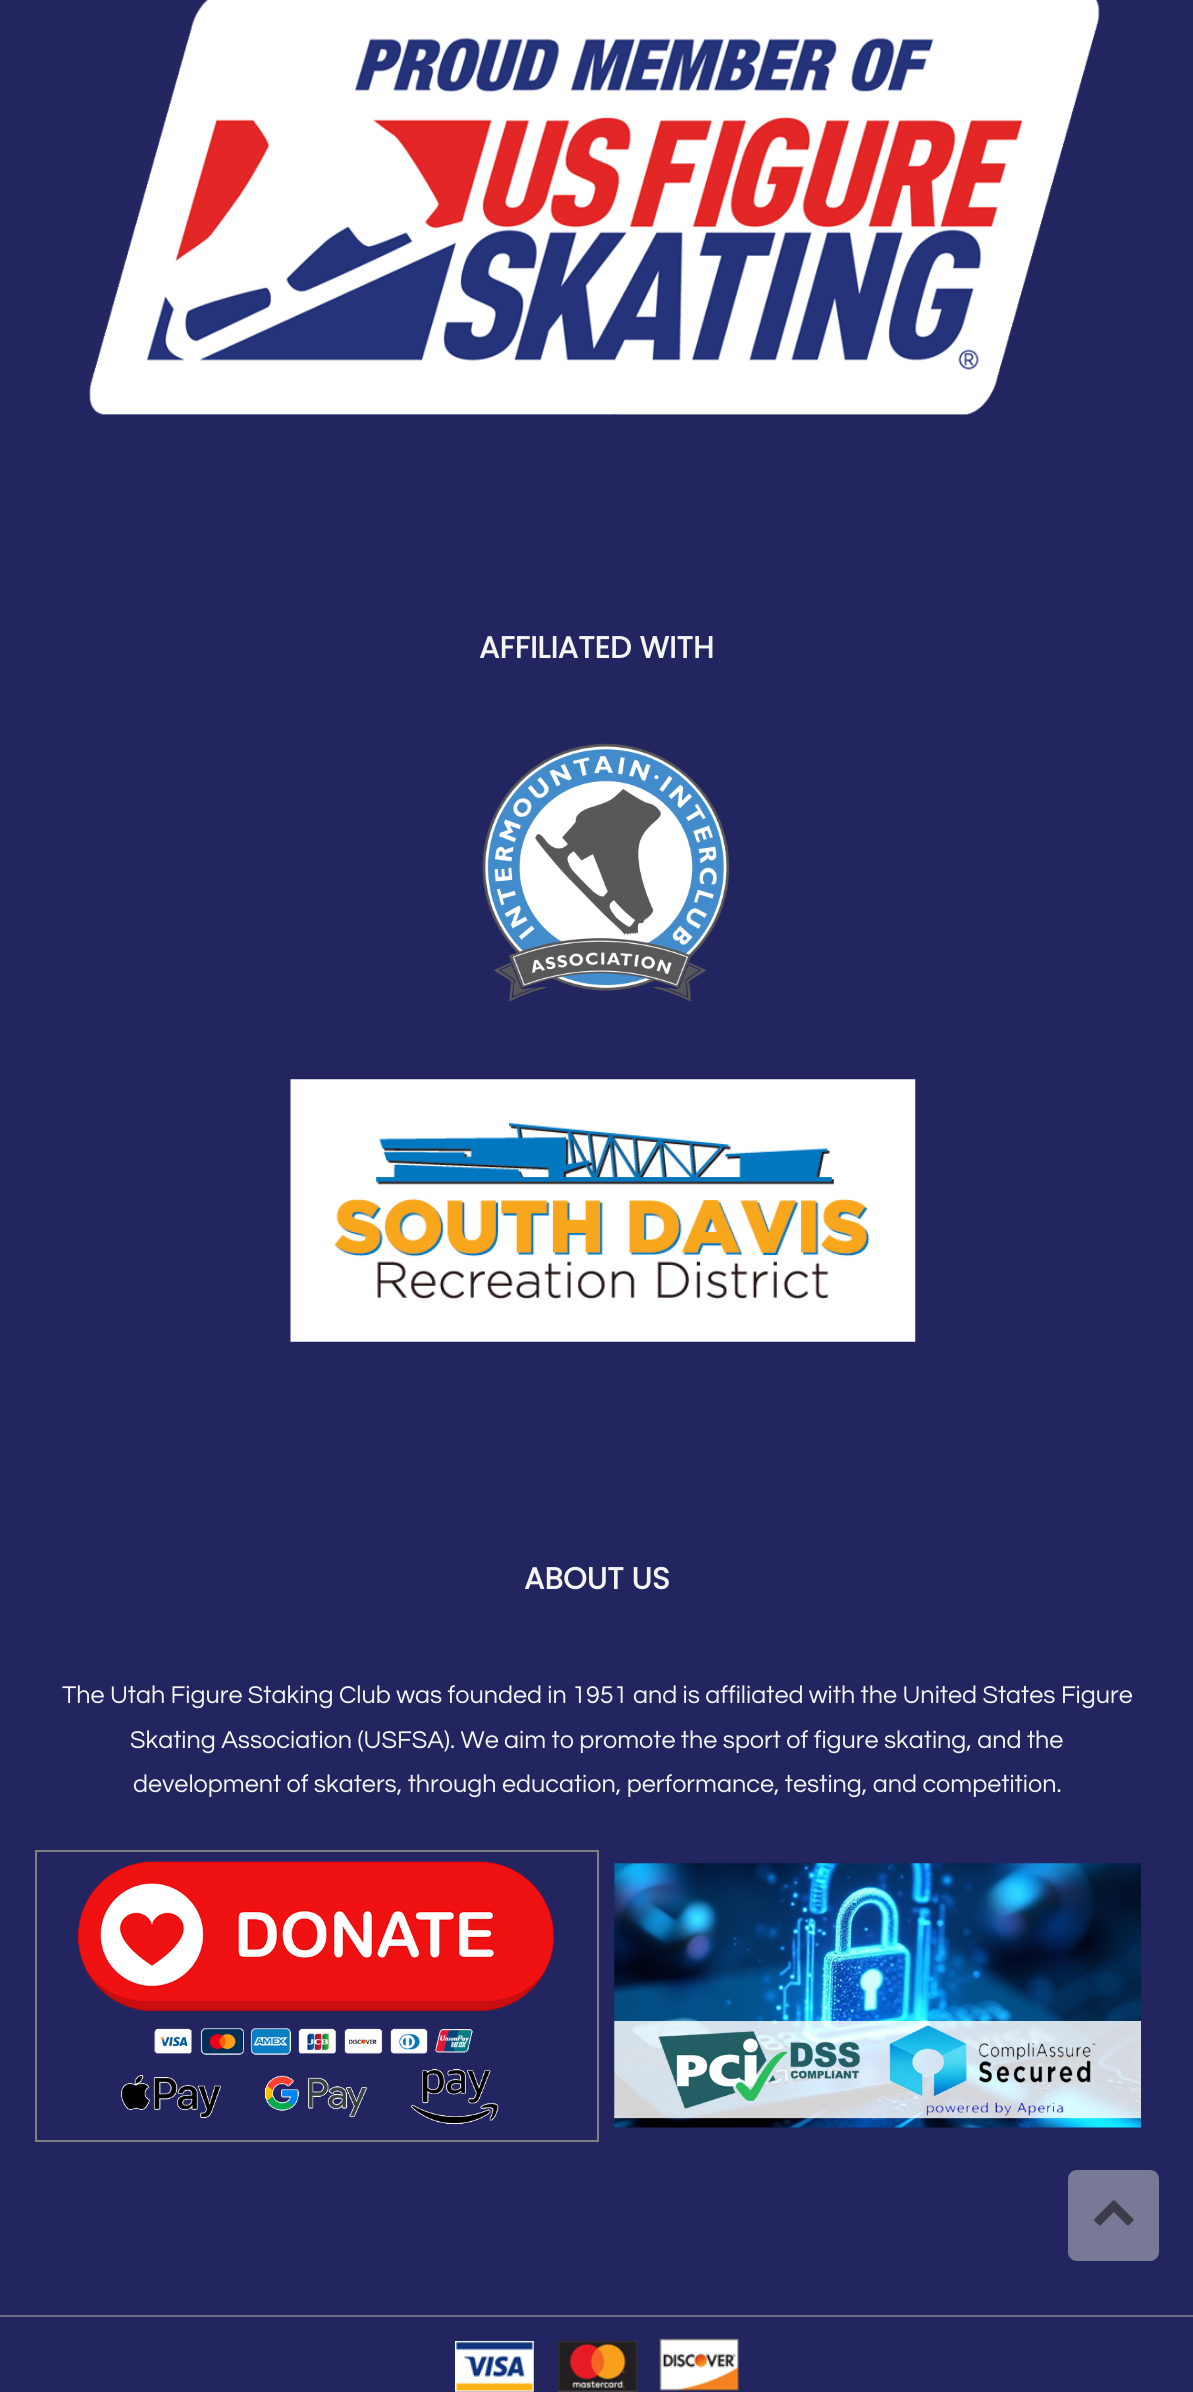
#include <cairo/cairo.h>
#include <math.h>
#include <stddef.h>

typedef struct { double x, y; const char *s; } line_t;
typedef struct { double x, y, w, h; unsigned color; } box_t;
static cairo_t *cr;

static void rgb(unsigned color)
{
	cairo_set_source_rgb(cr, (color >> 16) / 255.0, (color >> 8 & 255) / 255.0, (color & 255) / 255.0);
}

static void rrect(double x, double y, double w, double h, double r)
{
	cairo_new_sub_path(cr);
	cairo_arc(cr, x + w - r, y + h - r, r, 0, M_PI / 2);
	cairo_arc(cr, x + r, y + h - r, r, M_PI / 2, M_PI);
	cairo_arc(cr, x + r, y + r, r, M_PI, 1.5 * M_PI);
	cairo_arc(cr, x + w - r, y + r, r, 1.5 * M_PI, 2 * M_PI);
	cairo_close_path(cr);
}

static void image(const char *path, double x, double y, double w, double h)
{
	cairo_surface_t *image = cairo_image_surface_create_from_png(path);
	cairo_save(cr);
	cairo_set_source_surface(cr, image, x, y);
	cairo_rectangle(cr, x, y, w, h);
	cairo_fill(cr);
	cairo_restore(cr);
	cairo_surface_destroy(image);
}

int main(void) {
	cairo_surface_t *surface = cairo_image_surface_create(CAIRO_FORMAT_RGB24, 1193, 2392);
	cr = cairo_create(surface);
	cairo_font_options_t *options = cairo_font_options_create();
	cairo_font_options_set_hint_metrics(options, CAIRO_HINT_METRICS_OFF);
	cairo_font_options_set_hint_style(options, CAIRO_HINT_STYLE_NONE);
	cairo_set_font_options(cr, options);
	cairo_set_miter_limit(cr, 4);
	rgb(0x232560);
	cairo_paint(cr);
	image("img/1.png", 89, 0, 1011, 415);
	image("img/2.png", 482, 743, 248, 259);
	image("img/3.png", 290, 1079, 626, 263);
	{
		static const box_t items[] = {
			{35, 1850, 564, 2, 0x808080},
			{597, 1850, 2, 292, 0x808080},
			{35, 2140, 564, 2, 0x808080},
			{35, 1850, 2, 292, 0x808080},
		};
		for (size_t i = 0; i < sizeof items / sizeof *items; i++) {
			rgb(items[i].color);
			cairo_rectangle(cr, items[i].x, items[i].y, items[i].w, items[i].h);
			cairo_fill(cr);
		}
	}
	image("img/4.png", 77, 1861, 477, 263);
	image("img/5.png", 614, 1863, 527, 265);
	rgb(0x6a6e83);
	cairo_rectangle(cr, 0, 2315, 1193, 2);
	cairo_fill(cr);
	image("img/6.png", 455, 2341, 79, 51);
	image("img/7.png", 558, 2341, 79, 51);
	image("img/8.png", 659, 2338, 80, 53);
	rgb(0x787996);
	rrect(1069, 2171, 89, 89, 8);
	cairo_fill_preserve(cr);
	cairo_stroke(cr);
	image("img/9.png", 1094, 2200, 40, 26);
	cairo_select_font_face(cr, "Poppins", CAIRO_FONT_SLANT_NORMAL, CAIRO_FONT_WEIGHT_BOLD);
	cairo_set_font_size(cr, 30.25);
	rgb(0xf5f6f4);
	cairo_move_to(cr, 479, 658);
	cairo_show_text(cr, "AFFILIATED WITH");
	cairo_move_to(cr, 524, 1589);
	cairo_show_text(cr, "ABOUT US");
	cairo_select_font_face(cr, "Questrial", CAIRO_FONT_SLANT_NORMAL, CAIRO_FONT_WEIGHT_NORMAL);
	cairo_set_font_size(cr, 25.2);
	{
		static const line_t items[] = {
			{62, 1703, "The Utah Figure Staking Club was founded in 1951 and is affiliated with the United States Figure"},
			{130, 1748, "Skating Association (USFSA). We aim to promote the sport of figure skating, and the"},
			{133, 1792, "development of skaters, through education, performance, testing, and competition."},
		};
		for (size_t i = 0; i < sizeof items / sizeof *items; i++) {
			cairo_move_to(cr, items[i].x, items[i].y);
			cairo_show_text(cr, items[i].s);
		}
	}
	cairo_surface_write_to_png(surface, "page.png");
	cairo_font_options_destroy(options);
	cairo_destroy(cr);
	cairo_surface_destroy(surface);
	return 0;
}
